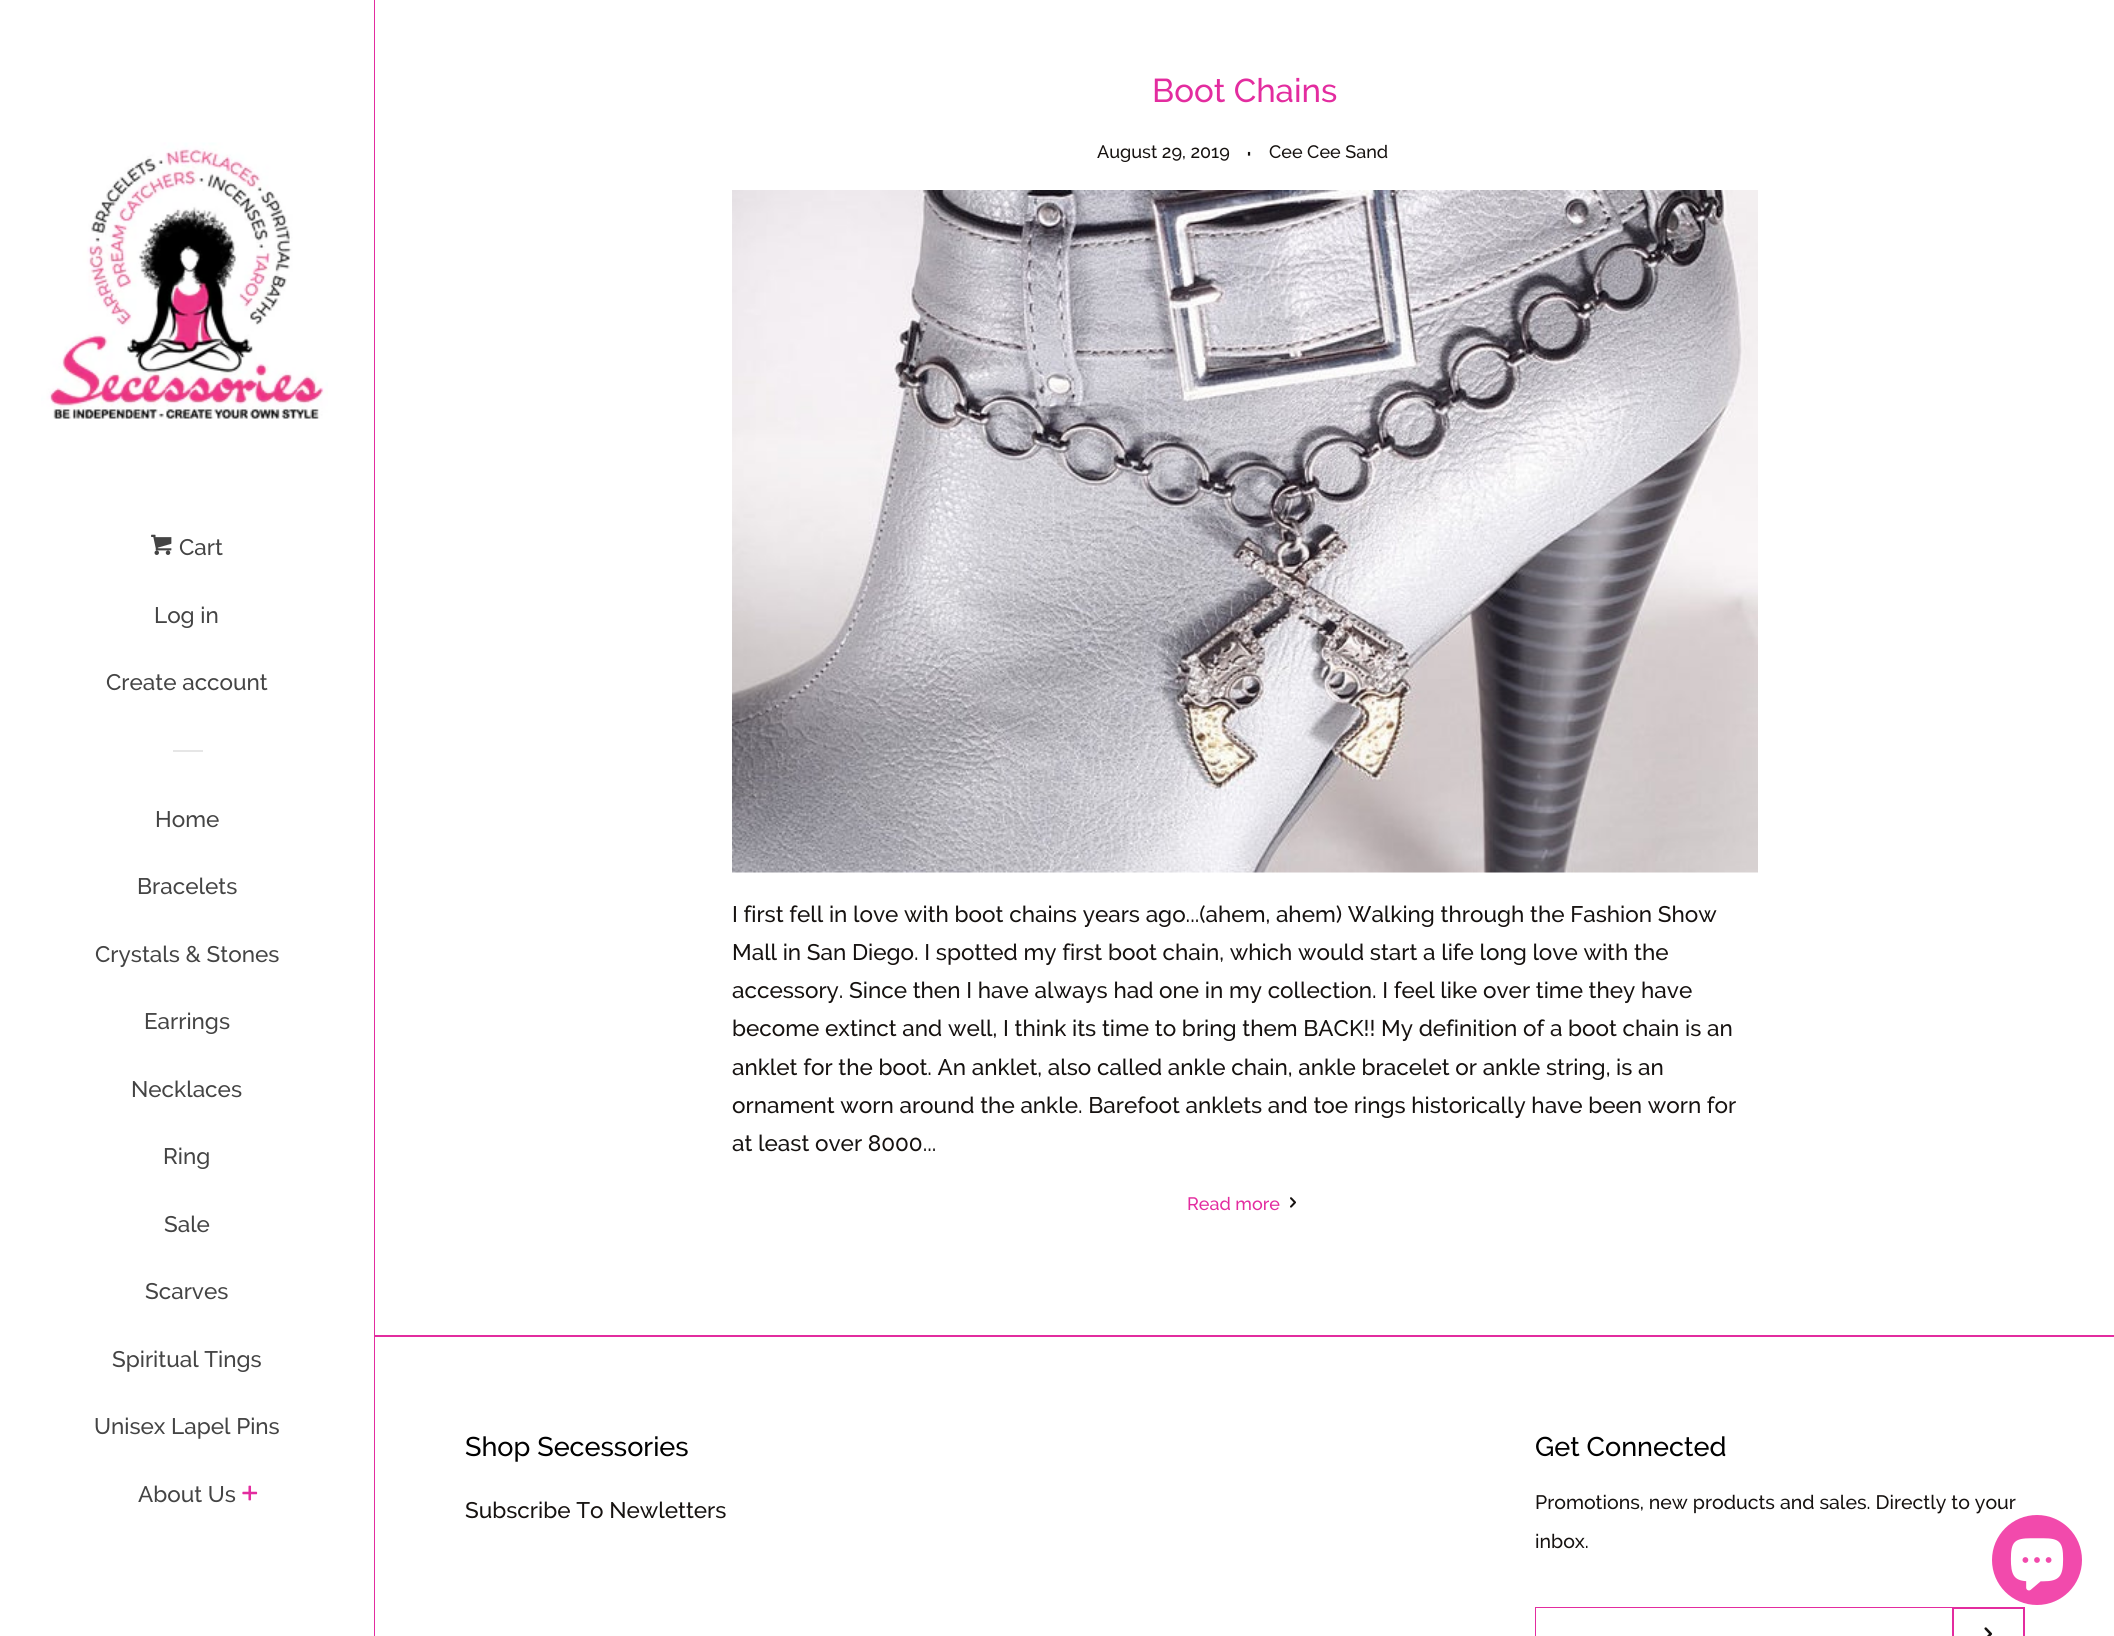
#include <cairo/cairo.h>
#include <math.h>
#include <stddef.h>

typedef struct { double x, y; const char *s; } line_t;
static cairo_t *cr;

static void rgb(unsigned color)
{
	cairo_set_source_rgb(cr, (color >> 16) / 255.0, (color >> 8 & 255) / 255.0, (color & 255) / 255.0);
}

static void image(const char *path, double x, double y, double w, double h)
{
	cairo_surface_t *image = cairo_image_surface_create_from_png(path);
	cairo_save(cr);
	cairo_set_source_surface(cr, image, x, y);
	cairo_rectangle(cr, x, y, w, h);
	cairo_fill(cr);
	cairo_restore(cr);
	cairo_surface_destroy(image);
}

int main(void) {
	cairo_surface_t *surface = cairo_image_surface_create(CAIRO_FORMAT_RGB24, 2114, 1636);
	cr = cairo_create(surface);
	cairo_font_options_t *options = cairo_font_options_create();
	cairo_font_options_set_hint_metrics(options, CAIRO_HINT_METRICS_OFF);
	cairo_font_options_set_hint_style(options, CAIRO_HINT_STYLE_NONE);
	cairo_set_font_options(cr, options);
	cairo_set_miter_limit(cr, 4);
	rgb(0xffffff);
	cairo_paint(cr);
	rgb(0xe32c9f);
	cairo_rectangle(cr, 374, 0, 1, 1636);
	cairo_fill(cr);
	image("img/1.png", 41, 142, 287, 277);
	image("img/2.png", 151, 534, 21, 21);
	rgb(0xe6e6e6);
	cairo_rectangle(cr, 173, 750, 30, 2);
	cairo_fill(cr);
	image("img/3.png", 242, 1485, 16, 16);
	image("img/4.png", 732, 190, 1026, 683);
	image("img/5.png", 1290, 1197, 6, 11);
	rgb(0xe32c9f);
	cairo_rectangle(cr, 375, 1335, 1739, 2);
	cairo_fill(cr);
	cairo_rectangle(cr, 1536, 1608, 488, 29);
	cairo_stroke(cr);
	rgb(0xffffff);
	cairo_rectangle(cr, 1536, 1608, 416, 28);
	cairo_fill(cr);
	rgb(0xe32c9f);
	cairo_rectangle(cr, 1952, 1608, 2, 28);
	cairo_fill(cr);
	image("img/6.png", 1984, 1627, 9, 9);
	rgb(0xf24aac);
	cairo_arc(cr, 2037, 1560, 45, 0, 2 * M_PI);
	cairo_fill(cr);
	image("img/7.png", 2010, 1538, 54, 53);
	cairo_select_font_face(cr, "Raleway Medium", CAIRO_FONT_SLANT_NORMAL, CAIRO_FONT_WEIGHT_NORMAL);
	cairo_set_font_size(cr, 22.5);
	rgb(0x444444);
	{
		static const line_t items[] = {
			{179, 555, "Cart"},
			{154, 623, "Log in"},
			{106, 690, "Create account"},
			{155, 827, "Home"},
			{137, 894, "Bracelets"},
			{95, 962, "Crystals & Stones"},
			{144, 1029, "Earrings"},
			{131, 1097, "Necklaces"},
			{163, 1164, "Ring"},
			{164, 1232, "Sale"},
			{145, 1299, "Scarves"},
			{112, 1367, "Spiritual Tings"},
			{94, 1434, "Unisex Lapel Pins"},
			{138, 1502, "About Us"},
		};
		for (size_t i = 0; i < sizeof items / sizeof *items; i++) {
			cairo_move_to(cr, items[i].x, items[i].y);
			cairo_show_text(cr, items[i].s);
		}
	}
	cairo_set_font_size(cr, 33);
	rgb(0xe32c9f);
	cairo_move_to(cr, 1152, 102);
	cairo_show_text(cr, "Boot Chains");
	cairo_set_font_size(cr, 18);
	rgb(0x161210);
	cairo_move_to(cr, 1097, 158);
	cairo_show_text(cr, "August 29, 2019");
	cairo_set_font_size(cr, 30);
	cairo_move_to(cr, 1246, 163);
	cairo_show_text(cr, "·");
	cairo_set_font_size(cr, 18);
	cairo_move_to(cr, 1269, 158);
	cairo_show_text(cr, "Cee Cee Sand");
	cairo_set_font_size(cr, 22.5);
	{
		static const line_t items[] = {
			{732, 922, "I first fell in love with boot chains years ago...(ahem, ahem) Walking through the Fashion Show"},
			{732, 960, "Mall in San Diego. I spotted my first boot chain, which would start a life long love with the"},
			{732, 998, "accessory. Since then I have always had one in my collection. I feel like over time they have"},
			{732, 1036, "become extinct and well, I think its time to bring them BACK!! My definition of a boot chain is an"},
			{732, 1075, "anklet for the boot. An anklet, also called ankle chain, ankle bracelet or ankle string, is an"},
			{732, 1113, "ornament worn around the ankle. Barefoot anklets and toe rings historically have been worn for"},
			{732, 1151, "at least over 8000..."},
		};
		for (size_t i = 0; i < sizeof items / sizeof *items; i++) {
			cairo_move_to(cr, items[i].x, items[i].y);
			cairo_show_text(cr, items[i].s);
		}
	}
	cairo_set_font_size(cr, 18);
	rgb(0xe32c9f);
	cairo_move_to(cr, 1187, 1210);
	cairo_show_text(cr, "Read more");
	cairo_set_font_size(cr, 27);
	rgb(0x000000);
	cairo_move_to(cr, 465, 1456);
	cairo_show_text(cr, "Shop Secessories");
	cairo_set_font_size(cr, 22.5);
	rgb(0x161210);
	cairo_move_to(cr, 465, 1518);
	cairo_show_text(cr, "Subscribe To Newletters");
	cairo_set_font_size(cr, 27);
	rgb(0x000000);
	cairo_move_to(cr, 1535, 1456);
	cairo_show_text(cr, "Get Connected");
	cairo_set_font_size(cr, 19.5);
	rgb(0x161210);
	cairo_move_to(cr, 1535, 1509);
	cairo_show_text(cr, "Promotions, new products and sales. Directly to your");
	cairo_move_to(cr, 1535, 1548);
	cairo_show_text(cr, "inbox.");
	cairo_surface_write_to_png(surface, "page.png");
	cairo_font_options_destroy(options);
	cairo_destroy(cr);
	cairo_surface_destroy(surface);
	return 0;
}
